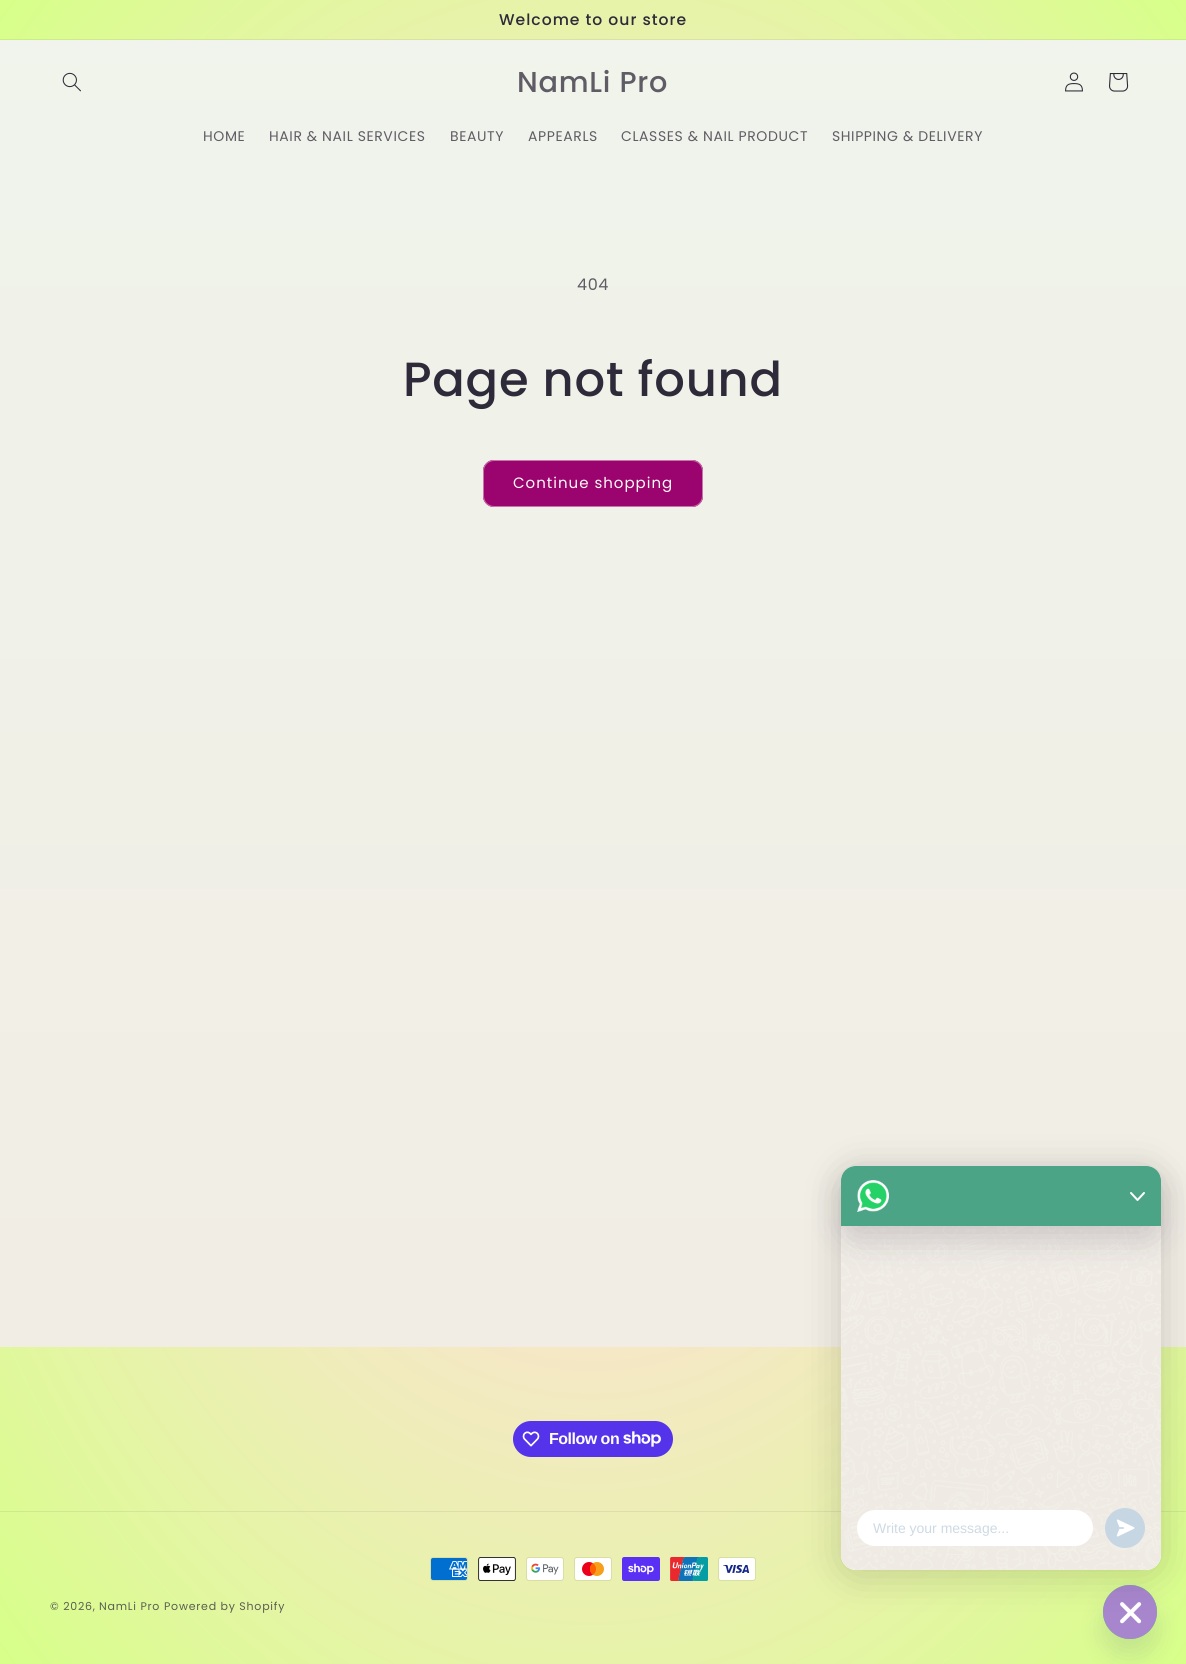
#include <cairo/cairo.h>
#include <math.h>
#include <stddef.h>

typedef struct { double x, y; const char *s; } line_t;
static cairo_t *cr;

static void rgb(unsigned color)
{
	cairo_set_source_rgb(cr, (color >> 16) / 255.0, (color >> 8 & 255) / 255.0, (color & 255) / 255.0);
}

static void tracked(double x, double y, const char *s, double letter, double word)
{
	cairo_move_to(cr, x, y);
	while (*s) {
		char ch[5] = {0};
		int n = 0;
		do ch[n++] = *s++; while ((*s & 0xC0) == 0x80);
		cairo_show_text(cr, ch);
		cairo_rel_move_to(cr, letter + word * (*ch == ' '), 0);
	}
}

static void rrect(double x, double y, double w, double h, double r)
{
	cairo_new_sub_path(cr);
	cairo_arc(cr, x + w - r, y + h - r, r, 0, M_PI / 2);
	cairo_arc(cr, x + r, y + h - r, r, M_PI / 2, M_PI);
	cairo_arc(cr, x + r, y + r, r, M_PI, 1.5 * M_PI);
	cairo_arc(cr, x + w - r, y + r, r, 1.5 * M_PI, 2 * M_PI);
	cairo_close_path(cr);
}

static void soft_shadow(double x, double y, double w, double h, double r, double blur, double alpha)
{
	cairo_push_group_with_content(cr, CAIRO_CONTENT_ALPHA);
	cairo_set_operator(cr, CAIRO_OPERATOR_SOURCE);
	for (int i = 15; i >= -15 && fmin(w, h) + blur * i / 3 > 0; i -= 2) {
		double e = blur * i / 6;
		cairo_set_source_rgba(cr, 0, 0, 0, alpha * erfc((i - 1) / 8.5) / 2);
		rrect(x - e, y - e, w + 2 * e, h + 2 * e, fmax(0, fmin(r + e + blur * .6, fmin(w, h) / 2 + e)));
		cairo_fill(cr);
	}
	cairo_pattern_t *soft = cairo_pop_group(cr);
	cairo_mask(cr, soft);
	cairo_pattern_destroy(soft);
}

static void image(const char *path, double x, double y, double w, double h)
{
	cairo_surface_t *image = cairo_image_surface_create_from_png(path);
	cairo_save(cr);
	cairo_set_source_surface(cr, image, x, y);
	cairo_rectangle(cr, x, y, w, h);
	cairo_fill(cr);
	cairo_restore(cr);
	cairo_surface_destroy(image);
}

int main(void) {
	cairo_surface_t *surface = cairo_image_surface_create(CAIRO_FORMAT_RGB24, 1186, 1664);
	cr = cairo_create(surface);
	cairo_font_options_t *options = cairo_font_options_create();
	cairo_font_options_set_hint_metrics(options, CAIRO_HINT_METRICS_OFF);
	cairo_font_options_set_hint_style(options, CAIRO_HINT_STYLE_NONE);
	cairo_set_font_options(cr, options);
	cairo_set_miter_limit(cr, 4);
	cairo_pattern_t *gradient;
	rgb(0xffffff);
	cairo_paint(cr);
	gradient = cairo_pattern_create_linear(593, 0, 593, 1664);
	cairo_pattern_add_color_stop_rgba(gradient, 0, 0.941, 0.957, 0.925, 1);
	cairo_pattern_add_color_stop_rgba(gradient, 1, 0.945, 0.922, 0.886, 1);
	cairo_set_source(cr, gradient);
	cairo_pattern_destroy(gradient);
	cairo_rectangle(cr, 0, 40, 1186, 1307);
	cairo_fill(cr);
	gradient = cairo_pattern_create_radial(0, 0, 0, 0, 0, 1);
	cairo_pattern_set_matrix(gradient, &(cairo_matrix_t){1.0 / 839, 0, 0, 1.0 / 1177, -1.0 * 593 / 839, -1.0 * 832 / 1177});
	cairo_pattern_add_color_stop_rgba(gradient, 0, 1, 0.898, 0.898, 1);
	cairo_pattern_add_color_stop_rgba(gradient, 0.25, 1, 0.878, 0.855, 1);
	cairo_pattern_add_color_stop_rgba(gradient, 1, 0.843, 1, 0.537, 1);
	cairo_set_source(cr, gradient);
	cairo_pattern_destroy(gradient);
	cairo_rectangle(cr, 0, 0, 1186, 39);
	cairo_fill(cr);
	gradient = cairo_pattern_create_radial(0, 0, 0, 0, 0, 1);
	cairo_pattern_set_matrix(gradient, &(cairo_matrix_t){1.0 / 839, 0, 0, 1.0 / 1177, -1.0 * 593 / 839, -1.0 * 832 / 1177});
	cairo_pattern_add_color_stop_rgba(gradient, 0, 0.933, 0.839, 0.843, 1);
	cairo_pattern_add_color_stop_rgba(gradient, 0.25, 0.933, 0.82, 0.804, 1);
	cairo_pattern_add_color_stop_rgba(gradient, 1, 0.788, 0.933, 0.514, 1);
	cairo_set_source(cr, gradient);
	cairo_pattern_destroy(gradient);
	cairo_rectangle(cr, 0, 39, 1186, 1);
	cairo_fill(cr);
	image("img/1.png", 62, 72, 19, 20);
	image("img/2.png", 1065, 72, 18, 20);
	image("img/3.png", 1109, 73, 20, 19);
	rgb(0x9b046f);
	rrect(483, 460, 220, 47, 11);
	cairo_fill(cr);
	rrect(483.5, 460.5, 219, 46, 10.5);
	cairo_set_line_width(cr, 1);
	cairo_stroke(cr);
	rrect(483.5, 460.5, 219, 46, 10.5);
	cairo_set_source_rgba(cr, 0.992, 0.984, 0.969, 0.45);
	cairo_stroke(cr);
	gradient = cairo_pattern_create_radial(0, 0, 0, 0, 0, 1);
	cairo_pattern_set_matrix(gradient, &(cairo_matrix_t){1.0 / 839, 0, 0, 1.0 / 1177, -1.0 * 593 / 839, -1.0 * 832 / 1177});
	cairo_pattern_add_color_stop_rgba(gradient, 0, 1, 0.898, 0.898, 1);
	cairo_pattern_add_color_stop_rgba(gradient, 0.25, 1, 0.878, 0.855, 1);
	cairo_pattern_add_color_stop_rgba(gradient, 1, 0.843, 1, 0.537, 1);
	cairo_set_source(cr, gradient);
	cairo_pattern_destroy(gradient);
	cairo_rectangle(cr, 0, 1347, 1186, 317);
	cairo_fill(cr);
	gradient = cairo_pattern_create_radial(0, 0, 0, 0, 0, 1);
	cairo_pattern_set_matrix(gradient, &(cairo_matrix_t){1.0 / 839, 0, 0, 1.0 / 1177, -1.0 * 593 / 839, -1.0 * 832 / 1177});
	cairo_pattern_add_color_stop_rgba(gradient, 0, 0.933, 0.839, 0.843, 1);
	cairo_pattern_add_color_stop_rgba(gradient, 0.25, 0.933, 0.82, 0.804, 1);
	cairo_pattern_add_color_stop_rgba(gradient, 1, 0.788, 0.933, 0.514, 1);
	cairo_set_source(cr, gradient);
	cairo_pattern_destroy(gradient);
	cairo_rectangle(cr, 0, 1511, 1186, 1);
	cairo_fill(cr);
	rgb(0x5433eb);
	rrect(513, 1421, 160, 36, 18);
	cairo_fill(cr);
	image("img/4.png", 522, 1431, 18, 16);
	image("img/5.png", 623, 1431, 38, 16);
	image("img/6.png", 430, 1557, 38, 24);
	image("img/7.png", 478, 1557, 38, 24);
	image("img/8.png", 526, 1557, 38, 24);
	image("img/9.png", 574, 1557, 38, 24);
	image("img/10.png", 622, 1557, 38, 24);
	image("img/11.png", 670, 1557, 38, 24);
	image("img/12.png", 718, 1557, 38, 24);
	image("img/17.png", 1103, 1585, 54, 54);
	rgb(0x49687e);
	soft_shadow(1103, 1601, 54, 54, 27, 12, 0.16);
	image("img/16.png", 1103, 1585, 54, 54);
	rgb(0x000000);
	soft_shadow(841, 1171, 320, 404, 15, 20, 0.16);
	rgb(0xffffff);
	rrect(841, 1166, 320, 404, 15);
	cairo_fill(cr);
	image("img/14.png", 841, 1166, 320, 404);
	rgb(0x1a0e35);
	soft_shadow(841, 1182, 320, 60, 15, 16, 0.16);
	rgb(0x4aa485);
	cairo_new_path(cr);
	cairo_move_to(cr, 856, 1166);
	cairo_line_to(cr, 1146, 1166);
	cairo_curve_to(cr, 1154.5, 1166, 1161, 1172.5, 1161, 1181);
	cairo_line_to(cr, 1161, 1226);
	cairo_line_to(cr, 841, 1226);
	cairo_line_to(cr, 841, 1181);
	cairo_curve_to(cr, 841, 1172.5, 847.5, 1166, 856, 1166);
	cairo_close_path(cr);
	cairo_fill(cr);
	image("img/13.png", 857, 1180, 32, 32);
	cairo_new_path(cr);
	cairo_move_to(cr, 1131, 1193);
	cairo_line_to(cr, 1137.5, 1200);
	cairo_line_to(cr, 1144, 1193);
	rgb(0xffffff);
	cairo_set_line_width(cr, 2);
	cairo_set_line_cap(cr, CAIRO_LINE_CAP_ROUND);
	cairo_set_line_join(cr, CAIRO_LINE_JOIN_ROUND);
	cairo_stroke(cr);
	rrect(857, 1510, 236, 36, 18);
	cairo_fill(cr);
	rgb(0xc6d7e3);
	cairo_arc(cr, 1125, 1528, 20, 0, 2 * M_PI);
	cairo_fill(cr);
	image("img/15.png", 1116, 1519, 19, 18);
	cairo_select_font_face(cr, "Poppins Medium", CAIRO_FONT_SLANT_NORMAL, CAIRO_FONT_WEIGHT_NORMAL);
	cairo_set_font_size(cr, 15.6);
	rgb(0x2e2a39);
	tracked(499, 25, "Welcome to our store", 1, 0);
	cairo_set_font_size(cr, 28.75);
	rgb(0x5f5c65);
	tracked(517, 92, "NamLi Pro", 0.75, 0);
	cairo_select_font_face(cr, "Poppins", CAIRO_FONT_SLANT_NORMAL, CAIRO_FONT_WEIGHT_NORMAL);
	cairo_set_font_size(cr, 14);
	{
		static const line_t items[] = {
			{203, 141, "HOME"},
			{269, 141, "HAIR & NAIL SERVICES"},
			{450, 141, "BEAUTY"},
			{528, 141, "APPEARLS"},
			{621, 141, "CLASSES & NAIL PRODUCT"},
			{832, 141, "SHIPPING & DELIVERY"},
		};
		for (size_t i = 0; i < sizeof items / sizeof *items; i++) {
			tracked(items[i].x, items[i].y, items[i].s, 0.6, 0);
		}
	}
	cairo_set_font_size(cr, 16);
	tracked(577, 290, "404", 0.6, 0);
	cairo_select_font_face(cr, "Poppins Medium", CAIRO_FONT_SLANT_NORMAL, CAIRO_FONT_WEIGHT_NORMAL);
	cairo_set_font_size(cr, 48);
	rgb(0x2e2a39);
	tracked(403, 396, "Page not found", 0.75, 0);
	cairo_select_font_face(cr, "Poppins", CAIRO_FONT_SLANT_NORMAL, CAIRO_FONT_WEIGHT_NORMAL);
	cairo_set_font_size(cr, 15);
	rgb(0xfdfbf7);
	tracked(513, 488, "Continue shopping", 1, 0);
	cairo_select_font_face(cr, "Liberation Sans", CAIRO_FONT_SLANT_NORMAL, CAIRO_FONT_WEIGHT_BOLD);
	cairo_set_font_size(cr, 16);
	rgb(0xffffff);
	tracked(549, 1444, "Follow on", -0.5, 0);
	cairo_select_font_face(cr, "Poppins", CAIRO_FONT_SLANT_NORMAL, CAIRO_FONT_WEIGHT_NORMAL);
	cairo_set_font_size(cr, 11);
	rgb(0x5a5e50);
	{
		static const line_t items[] = {
			{50, 1610, "© 2026,"},
			{99, 1610, "NamLi Pro"},
			{164, 1610, "Powered by Shopify"},
		};
		for (size_t i = 0; i < sizeof items / sizeof *items; i++) {
			tracked(items[i].x, items[i].y, items[i].s, 0.75, 0);
		}
	}
	cairo_select_font_face(cr, "Liberation Sans", CAIRO_FONT_SLANT_NORMAL, CAIRO_FONT_WEIGHT_NORMAL);
	cairo_set_font_size(cr, 14);
	rgb(0xcedae3);
	cairo_move_to(cr, 873, 1533);
	cairo_show_text(cr, "Write your message...");
	cairo_surface_write_to_png(surface, "page.png");
	cairo_font_options_destroy(options);
	cairo_destroy(cr);
	cairo_surface_destroy(surface);
	return 0;
}
